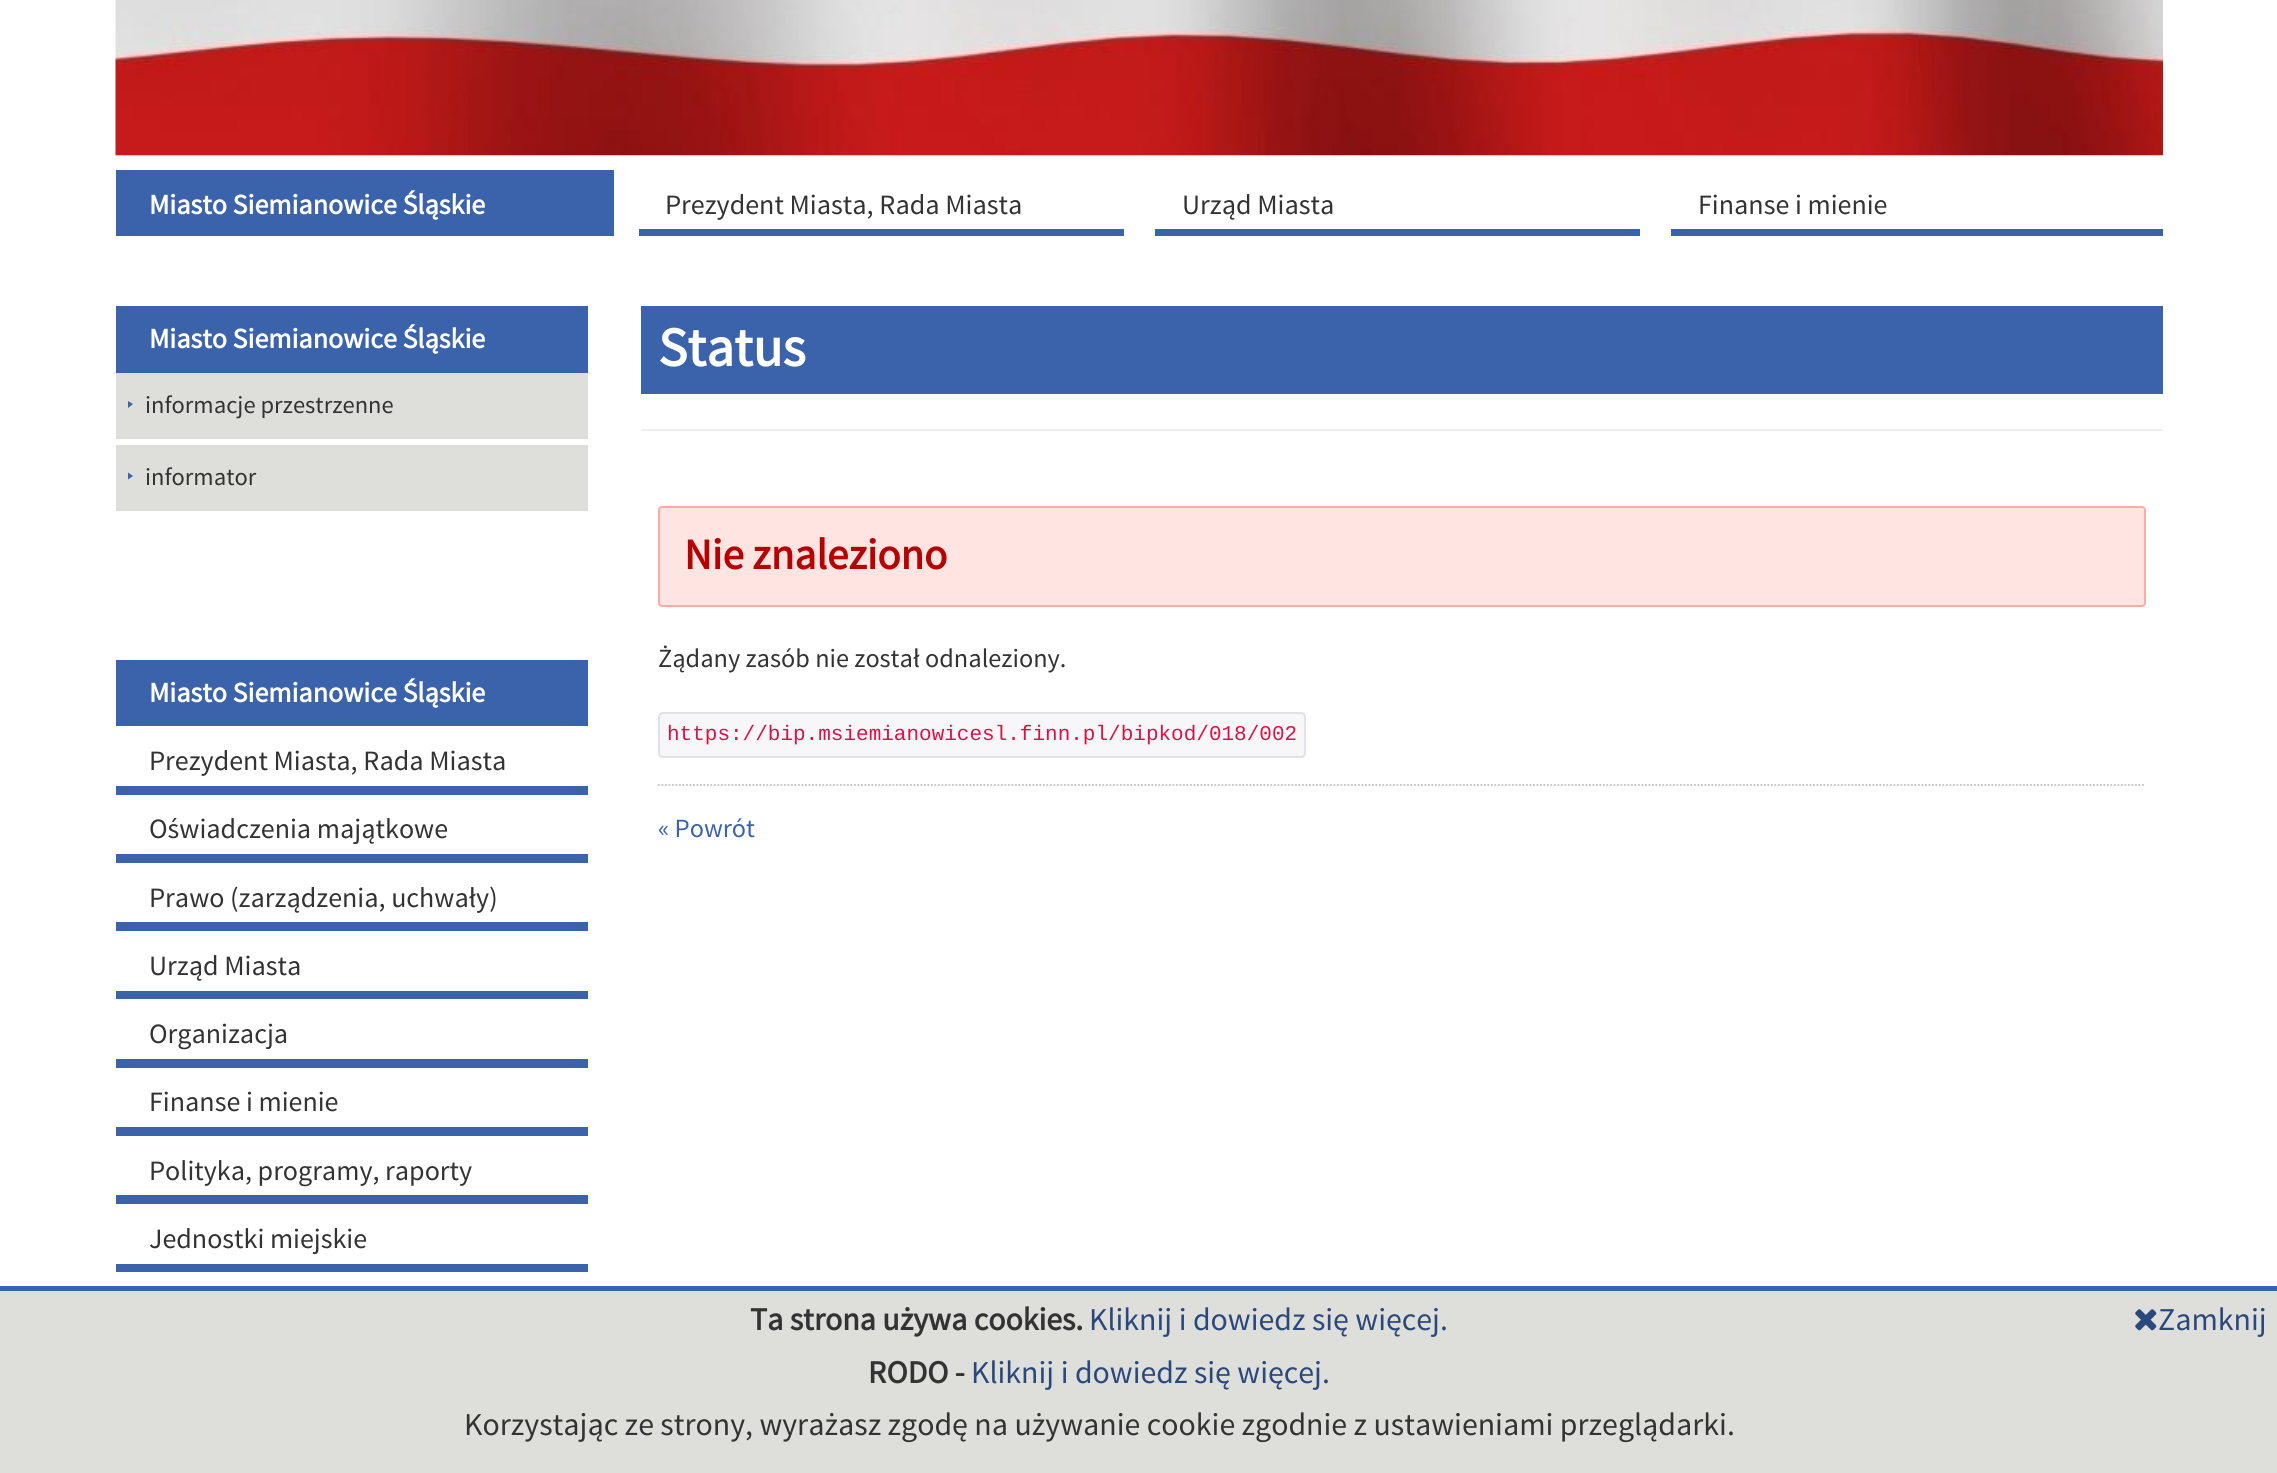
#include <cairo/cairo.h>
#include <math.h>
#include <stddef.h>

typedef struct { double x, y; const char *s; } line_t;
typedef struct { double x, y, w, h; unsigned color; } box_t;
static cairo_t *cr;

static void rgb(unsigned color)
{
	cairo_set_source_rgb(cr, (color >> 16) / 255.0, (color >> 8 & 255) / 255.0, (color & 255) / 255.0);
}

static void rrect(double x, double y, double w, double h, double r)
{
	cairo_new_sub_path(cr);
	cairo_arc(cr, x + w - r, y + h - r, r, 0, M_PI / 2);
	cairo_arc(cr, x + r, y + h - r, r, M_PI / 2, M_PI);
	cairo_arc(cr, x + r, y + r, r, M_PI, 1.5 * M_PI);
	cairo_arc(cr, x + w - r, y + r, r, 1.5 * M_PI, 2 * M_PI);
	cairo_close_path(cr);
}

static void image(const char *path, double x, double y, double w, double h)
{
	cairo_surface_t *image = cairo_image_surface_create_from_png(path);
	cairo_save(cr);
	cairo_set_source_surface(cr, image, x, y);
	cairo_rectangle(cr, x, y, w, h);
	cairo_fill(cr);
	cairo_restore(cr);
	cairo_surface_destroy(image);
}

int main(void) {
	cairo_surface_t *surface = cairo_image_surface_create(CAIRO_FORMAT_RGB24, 2277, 1473);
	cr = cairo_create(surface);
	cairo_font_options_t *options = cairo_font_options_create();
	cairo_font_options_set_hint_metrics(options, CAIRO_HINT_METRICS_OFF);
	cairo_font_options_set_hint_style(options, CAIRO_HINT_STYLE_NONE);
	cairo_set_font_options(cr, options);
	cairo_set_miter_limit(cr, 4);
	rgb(0xffffff);
	cairo_paint(cr);
	image("img/1.png", 115, 0, 2048, 156);
	{
		static const box_t items[] = {
			{116, 170, 498, 66, 0x3b63ac},
			{639, 229, 485, 7, 0x3b63ac},
			{1155, 229, 485, 7, 0x3b63ac},
			{1671, 229, 492, 7, 0x3b63ac},
			{116, 306, 472, 67, 0x3b63ac},
			{116, 373, 472, 66, 0xdededa},
		};
		for (size_t i = 0; i < sizeof items / sizeof *items; i++) {
			rgb(items[i].color);
			cairo_rectangle(cr, items[i].x, items[i].y, items[i].w, items[i].h);
			cairo_fill(cr);
		}
	}
	rgb(0x3b63ac);
	cairo_new_path(cr);
	cairo_move_to(cr, 128, 408);
	cairo_line_to(cr, 128, 401);
	cairo_line_to(cr, 133, 404);
	cairo_close_path(cr);
	cairo_fill(cr);
	rgb(0xdededa);
	cairo_rectangle(cr, 116, 445, 472, 66);
	cairo_fill(cr);
	rgb(0x3b63ac);
	cairo_new_path(cr);
	cairo_move_to(cr, 128, 479.5);
	cairo_line_to(cr, 128, 472.5);
	cairo_line_to(cr, 133, 476);
	cairo_close_path(cr);
	cairo_fill(cr);
	{
		static const box_t items[] = {
			{116, 660, 472, 66, 0x3b63ac},
			{116, 786, 472, 9, 0x3b63ac},
			{116, 854, 472, 9, 0x3b63ac},
			{116, 922, 472, 9, 0x3b63ac},
			{116, 991, 472, 8, 0x3b63ac},
			{116, 1059, 472, 9, 0x3b63ac},
			{116, 1127, 472, 9, 0x3b63ac},
			{116, 1195, 472, 9, 0x3b63ac},
			{116, 1264, 472, 8, 0x3b63ac},
			{641, 306, 1522, 88, 0x3b63ac},
			{641, 429, 1522, 2, 0xeeeeee},
		};
		for (size_t i = 0; i < sizeof items / sizeof *items; i++) {
			rgb(items[i].color);
			cairo_rectangle(cr, items[i].x, items[i].y, items[i].w, items[i].h);
			cairo_fill(cr);
		}
	}
	rgb(0xfee5e2);
	rrect(659, 507, 1486, 99, 3);
	cairo_fill_preserve(cr);
	rgb(0xfcaca5);
	cairo_stroke(cr);
	rgb(0xf7f7f9);
	rrect(659, 713, 646, 44, 4);
	cairo_fill_preserve(cr);
	rgb(0xe1e1e8);
	cairo_stroke(cr);
	cairo_new_path(cr);
	cairo_move_to(cr, 658, 785);
	cairo_line_to(cr, 2145.5, 785);
	rgb(0xbfbfbf);
	cairo_set_line_width(cr, 1.8);
	cairo_set_dash(cr, (double[]){1.75, 1.75}, 2, 0);
	cairo_stroke(cr);
	rgb(0xdededa);
	cairo_rectangle(cr, 0, 1291, 2277, 182);
	cairo_fill(cr);
	rgb(0x3b63ac);
	cairo_rectangle(cr, 0, 1286, 2277, 5);
	cairo_fill(cr);
	image("img/2.png", 2135, 1309, 22, 22);
	cairo_select_font_face(cr, "Source Sans Pro", CAIRO_FONT_SLANT_NORMAL, CAIRO_FONT_WEIGHT_BOLD);
	cairo_set_font_size(cr, 28);
	rgb(0xffffff);
	cairo_move_to(cr, 149, 214);
	cairo_show_text(cr, "Miasto Siemianowice Śląskie");
	cairo_select_font_face(cr, "Source Sans Pro", CAIRO_FONT_SLANT_NORMAL, CAIRO_FONT_WEIGHT_NORMAL);
	rgb(0x333333);
	{
		static const line_t items[] = {
			{665, 214, "Prezydent Miasta, Rada Miasta"},
			{1182, 214, "Urząd Miasta"},
			{1698, 214, "Finanse i mienie"},
		};
		for (size_t i = 0; i < sizeof items / sizeof *items; i++) {
			cairo_move_to(cr, items[i].x, items[i].y);
			cairo_show_text(cr, items[i].s);
		}
	}
	cairo_select_font_face(cr, "Source Sans Pro", CAIRO_FONT_SLANT_NORMAL, CAIRO_FONT_WEIGHT_BOLD);
	rgb(0xffffff);
	cairo_move_to(cr, 149, 348);
	cairo_show_text(cr, "Miasto Siemianowice Śląskie");
	cairo_select_font_face(cr, "Source Sans Pro", CAIRO_FONT_SLANT_NORMAL, CAIRO_FONT_WEIGHT_NORMAL);
	cairo_set_font_size(cr, 24.5);
	rgb(0x333333);
	cairo_move_to(cr, 145, 413);
	cairo_show_text(cr, "informacje przestrzenne");
	cairo_move_to(cr, 145, 485);
	cairo_show_text(cr, "informator");
	cairo_select_font_face(cr, "Source Sans Pro", CAIRO_FONT_SLANT_NORMAL, CAIRO_FONT_WEIGHT_BOLD);
	cairo_set_font_size(cr, 28);
	rgb(0xffffff);
	cairo_move_to(cr, 149, 702);
	cairo_show_text(cr, "Miasto Siemianowice Śląskie");
	cairo_select_font_face(cr, "Source Sans Pro", CAIRO_FONT_SLANT_NORMAL, CAIRO_FONT_WEIGHT_NORMAL);
	rgb(0x333333);
	{
		static const line_t items[] = {
			{149, 770, "Prezydent Miasta, Rada Miasta"},
			{149, 838, "Oświadczenia majątkowe"},
			{149, 907, "Prawo (zarządzenia, uchwały)"},
			{149, 975, "Urząd Miasta"},
			{149, 1043, "Organizacja"},
			{149, 1111, "Finanse i mienie"},
			{149, 1180, "Polityka, programy, raporty"},
			{149, 1248, "Jednostki miejskie"},
		};
		for (size_t i = 0; i < sizeof items / sizeof *items; i++) {
			cairo_move_to(cr, items[i].x, items[i].y);
			cairo_show_text(cr, items[i].s);
		}
	}
	cairo_select_font_face(cr, "Source Sans Pro", CAIRO_FONT_SLANT_NORMAL, CAIRO_FONT_WEIGHT_BOLD);
	cairo_set_font_size(cr, 55);
	rgb(0xffffff);
	cairo_move_to(cr, 658, 366);
	cairo_show_text(cr, "Status");
	cairo_set_font_size(cr, 43);
	rgb(0xb50303);
	cairo_move_to(cr, 684, 569);
	cairo_show_text(cr, "Nie znaleziono");
	cairo_select_font_face(cr, "Source Sans Pro", CAIRO_FONT_SLANT_NORMAL, CAIRO_FONT_WEIGHT_NORMAL);
	cairo_set_font_size(cr, 26.25);
	rgb(0x333333);
	cairo_move_to(cr, 658, 667);
	cairo_show_text(cr, "Żądany zasób nie został odnaleziony.");
	cairo_select_font_face(cr, "Liberation Mono", CAIRO_FONT_SLANT_NORMAL, CAIRO_FONT_WEIGHT_NORMAL);
	cairo_set_font_size(cr, 21);
	rgb(0xdd1144);
	cairo_move_to(cr, 667, 740);
	cairo_show_text(cr, "https://bip.msiemianowicesl.finn.pl/bipkod/018/002");
	cairo_select_font_face(cr, "Source Sans Pro", CAIRO_FONT_SLANT_NORMAL, CAIRO_FONT_WEIGHT_NORMAL);
	cairo_set_font_size(cr, 26.25);
	rgb(0x3b63ac);
	cairo_move_to(cr, 658, 837);
	cairo_show_text(cr, "« Powrót");
	cairo_select_font_face(cr, "Source Sans Pro", CAIRO_FONT_SLANT_NORMAL, CAIRO_FONT_WEIGHT_BOLD);
	cairo_set_font_size(cr, 31.85);
	rgb(0x333333);
	cairo_move_to(cr, 750, 1330);
	cairo_show_text(cr, "Ta strona używa cookies.");
	cairo_select_font_face(cr, "Source Sans Pro", CAIRO_FONT_SLANT_NORMAL, CAIRO_FONT_WEIGHT_NORMAL);
	rgb(0x2b487d);
	cairo_move_to(cr, 1089, 1330);
	cairo_show_text(cr, "Kliknij i dowiedz się więcej.");
	cairo_select_font_face(cr, "Source Sans Pro", CAIRO_FONT_SLANT_NORMAL, CAIRO_FONT_WEIGHT_BOLD);
	rgb(0x333333);
	cairo_move_to(cr, 868, 1383);
	cairo_show_text(cr, "RODO -");
	cairo_select_font_face(cr, "Source Sans Pro", CAIRO_FONT_SLANT_NORMAL, CAIRO_FONT_WEIGHT_NORMAL);
	rgb(0x2b487d);
	cairo_move_to(cr, 971, 1383);
	cairo_show_text(cr, "Kliknij i dowiedz się więcej.");
	rgb(0x333333);
	cairo_move_to(cr, 464, 1435);
	cairo_show_text(cr, "Korzystając ze strony, wyrażasz zgodę na używanie cookie zgodnie z ustawieniami przeglądarki.");
	rgb(0x2b487d);
	cairo_move_to(cr, 2158, 1330);
	cairo_show_text(cr, "Zamknij");
	cairo_surface_write_to_png(surface, "page.png");
	cairo_font_options_destroy(options);
	cairo_destroy(cr);
	cairo_surface_destroy(surface);
	return 0;
}
